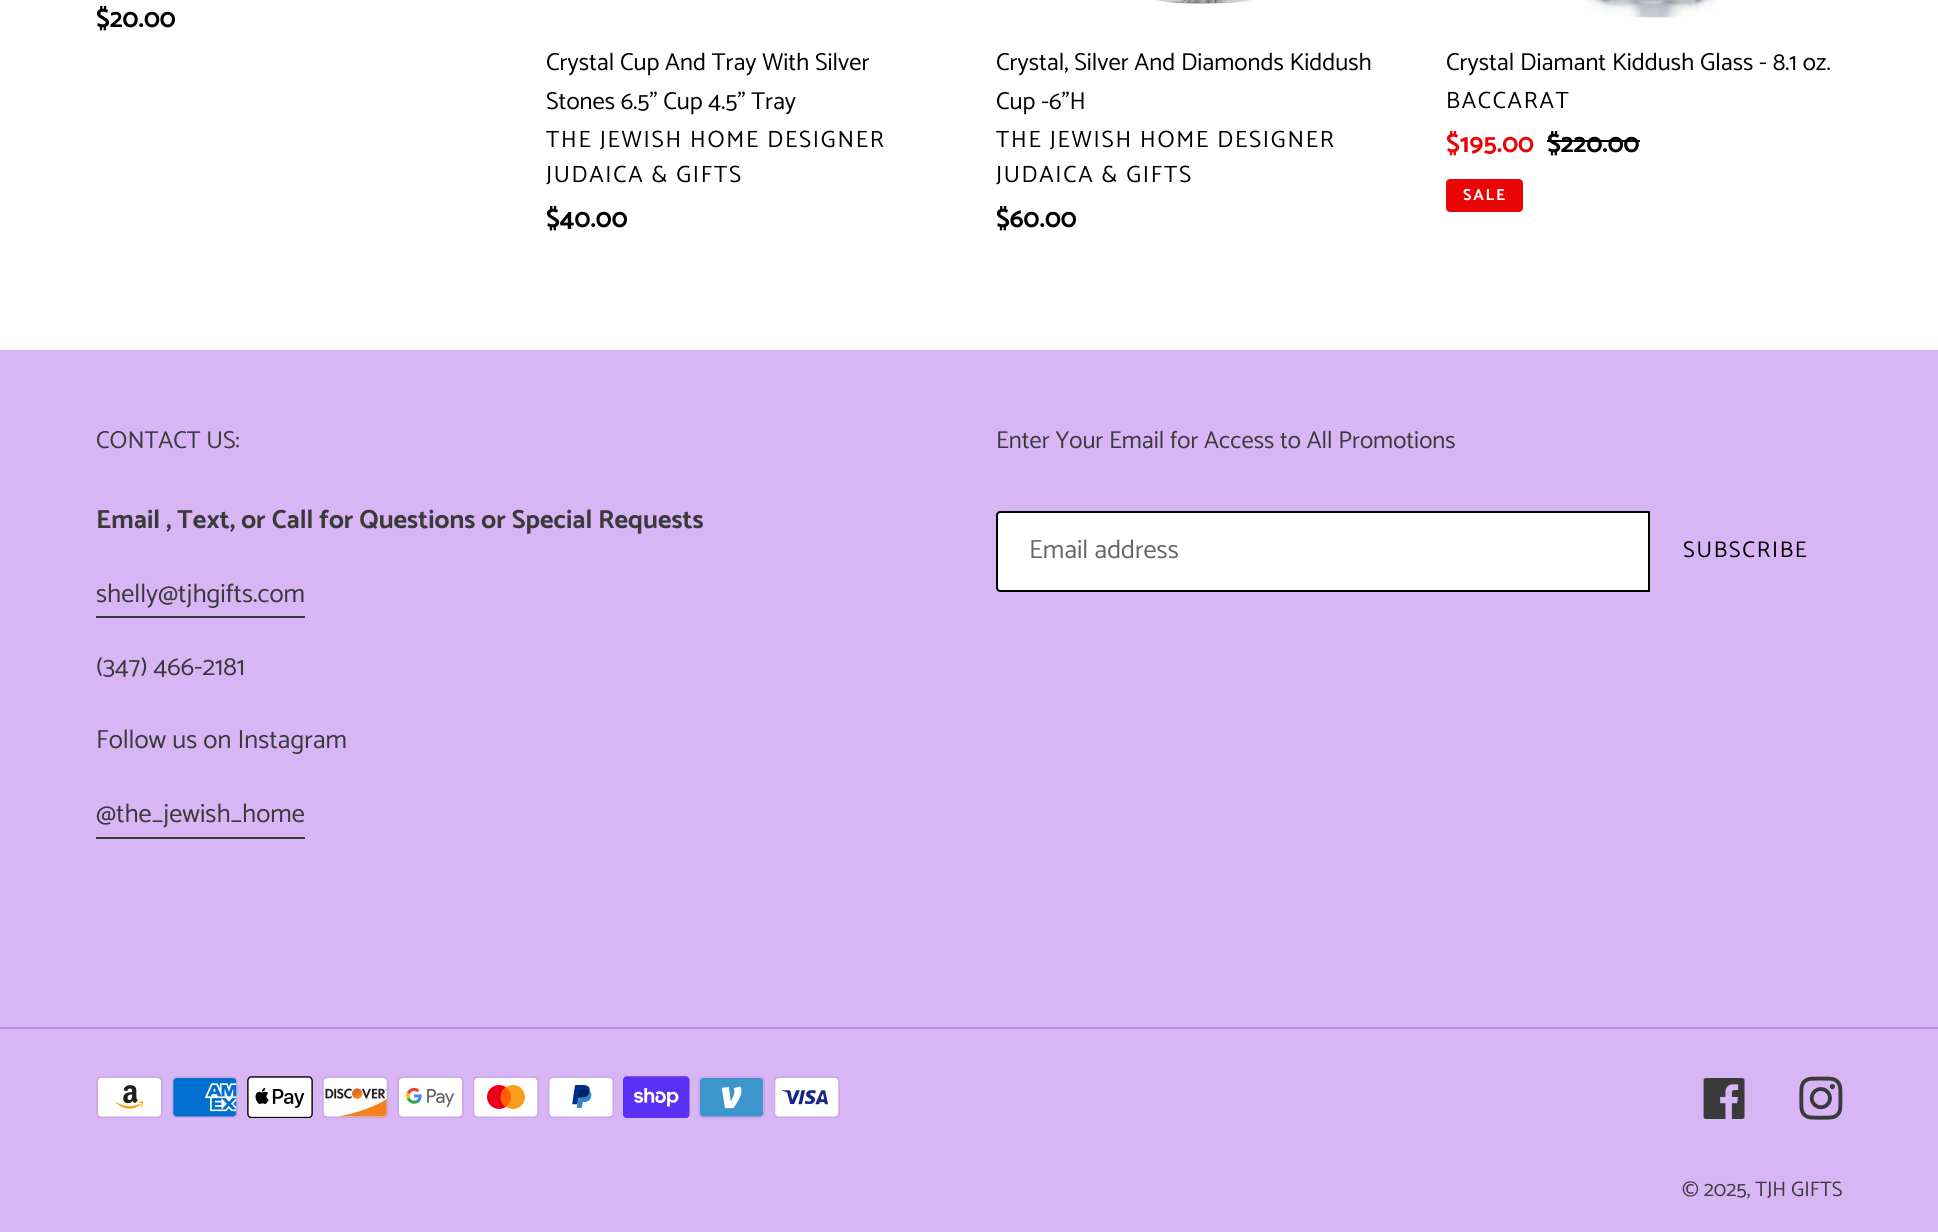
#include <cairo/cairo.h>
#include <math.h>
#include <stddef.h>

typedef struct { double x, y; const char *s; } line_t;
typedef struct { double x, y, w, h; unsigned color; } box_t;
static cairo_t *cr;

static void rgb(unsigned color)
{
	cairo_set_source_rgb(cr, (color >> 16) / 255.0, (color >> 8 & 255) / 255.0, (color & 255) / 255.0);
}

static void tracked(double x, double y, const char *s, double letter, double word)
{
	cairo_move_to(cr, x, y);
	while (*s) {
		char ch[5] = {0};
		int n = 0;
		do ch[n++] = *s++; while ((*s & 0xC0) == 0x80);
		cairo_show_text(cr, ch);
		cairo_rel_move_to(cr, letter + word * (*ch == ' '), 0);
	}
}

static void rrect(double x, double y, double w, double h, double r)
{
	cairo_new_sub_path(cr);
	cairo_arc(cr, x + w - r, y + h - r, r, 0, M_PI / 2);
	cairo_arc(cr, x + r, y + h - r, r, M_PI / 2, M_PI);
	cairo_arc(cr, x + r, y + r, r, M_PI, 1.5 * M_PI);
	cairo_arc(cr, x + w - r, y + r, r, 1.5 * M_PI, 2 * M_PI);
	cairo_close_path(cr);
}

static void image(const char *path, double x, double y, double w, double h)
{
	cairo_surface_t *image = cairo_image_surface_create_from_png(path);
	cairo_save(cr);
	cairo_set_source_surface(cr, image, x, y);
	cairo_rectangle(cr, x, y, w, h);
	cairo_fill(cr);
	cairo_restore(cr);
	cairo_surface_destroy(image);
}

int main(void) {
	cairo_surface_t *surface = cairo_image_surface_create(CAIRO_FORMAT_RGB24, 1938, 1232);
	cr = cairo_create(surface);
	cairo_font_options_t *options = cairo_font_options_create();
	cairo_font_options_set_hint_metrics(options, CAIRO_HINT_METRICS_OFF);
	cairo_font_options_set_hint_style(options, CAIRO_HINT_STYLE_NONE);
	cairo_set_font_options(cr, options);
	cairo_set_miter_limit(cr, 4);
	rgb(0xffffff);
	cairo_paint(cr);
	image("img/1.png", 1155, 0, 96, 4);
	image("img/2.png", 1584, 0, 133, 18);
	rgb(0x000000);
	cairo_rectangle(cr, 1547, 140, 93, 2);
	cairo_fill(cr);
	rgb(0xea0606);
	rrect(1447, 180, 75, 31, 3);
	cairo_fill_preserve(cr);
	cairo_stroke(cr);
	{
		static const box_t items[] = {
			{0, 350, 1938, 882, 0xd8b5f5},
			{96, 616, 209, 2, 0x3a3a3a},
			{96, 837, 209, 2, 0x3a3a3a},
		};
		for (size_t i = 0; i < sizeof items / sizeof *items; i++) {
			rgb(items[i].color);
			cairo_rectangle(cr, items[i].x, items[i].y, items[i].w, items[i].h);
			cairo_fill(cr);
		}
	}
	rgb(0xffffff);
	cairo_new_path(cr);
	cairo_move_to(cr, 1000, 512);
	cairo_line_to(cr, 1649, 512);
	cairo_line_to(cr, 1649, 591);
	cairo_line_to(cr, 1000, 591);
	cairo_curve_to(cr, 998.5, 591, 997, 589.5, 997, 588);
	cairo_line_to(cr, 997, 515);
	cairo_curve_to(cr, 997, 513.5, 998.5, 512, 1000, 512);
	cairo_close_path(cr);
	cairo_fill_preserve(cr);
	rgb(0x000000);
	cairo_stroke(cr);
	rgb(0xc088ef);
	cairo_rectangle(cr, 0, 1027, 1938, 2);
	cairo_fill(cr);
	image("img/3.png", 96, 1076, 67, 42);
	image("img/4.png", 172, 1076, 66, 42);
	image("img/5.png", 247, 1076, 66, 42);
	image("img/6.png", 322, 1076, 67, 42);
	image("img/7.png", 397, 1076, 67, 42);
	image("img/8.png", 473, 1076, 66, 42);
	image("img/9.png", 548, 1076, 66, 42);
	image("img/10.png", 623, 1076, 67, 42);
	image("img/11.png", 698, 1076, 67, 42);
	image("img/12.png", 774, 1076, 66, 42);
	image("img/13.png", 1703, 1078, 42, 41);
	image("img/14.png", 1799, 1076, 44, 44);
	cairo_select_font_face(cr, "Catamaran", CAIRO_FONT_SLANT_NORMAL, CAIRO_FONT_WEIGHT_BOLD);
	cairo_set_font_size(cr, 26.25);
	rgb(0x000000);
	cairo_move_to(cr, 96, 27);
	cairo_show_text(cr, "$20.00");
	cairo_select_font_face(cr, "Catamaran", CAIRO_FONT_SLANT_NORMAL, CAIRO_FONT_WEIGHT_NORMAL);
	cairo_set_font_size(cr, 24.5);
	cairo_move_to(cr, 546, 70);
	cairo_show_text(cr, "Crystal Cup And Tray With Silver");
	cairo_move_to(cr, 546, 109);
	cairo_show_text(cr, "Stones 6.5\" Cup 4.5\" Tray");
	cairo_set_font_size(cr, 23.6);
	tracked(546, 147, "THE JEWISH HOME DESIGNER", 1.75, 0);
	tracked(546, 182, "JUDAICA & GIFTS", 1.75, 0);
	cairo_select_font_face(cr, "Catamaran", CAIRO_FONT_SLANT_NORMAL, CAIRO_FONT_WEIGHT_BOLD);
	cairo_set_font_size(cr, 26.25);
	cairo_move_to(cr, 546, 227);
	cairo_show_text(cr, "$40.00");
	cairo_select_font_face(cr, "Catamaran", CAIRO_FONT_SLANT_NORMAL, CAIRO_FONT_WEIGHT_NORMAL);
	cairo_set_font_size(cr, 24.5);
	cairo_move_to(cr, 996, 70);
	cairo_show_text(cr, "Crystal, Silver And Diamonds Kiddush");
	cairo_move_to(cr, 996, 109);
	cairo_show_text(cr, "Cup -6\"H");
	cairo_set_font_size(cr, 23.6);
	tracked(996, 147, "THE JEWISH HOME DESIGNER", 1.75, 0);
	tracked(996, 182, "JUDAICA & GIFTS", 1.75, 0);
	cairo_select_font_face(cr, "Catamaran", CAIRO_FONT_SLANT_NORMAL, CAIRO_FONT_WEIGHT_BOLD);
	cairo_set_font_size(cr, 26.25);
	cairo_move_to(cr, 996, 227);
	cairo_show_text(cr, "$60.00");
	cairo_select_font_face(cr, "Catamaran", CAIRO_FONT_SLANT_NORMAL, CAIRO_FONT_WEIGHT_NORMAL);
	cairo_set_font_size(cr, 24.5);
	cairo_move_to(cr, 1446, 70);
	cairo_show_text(cr, "Crystal Diamant Kiddush Glass - 8.1 oz.");
	cairo_set_font_size(cr, 23.6);
	tracked(1446, 108, "BACCARAT", 1.75, 0);
	cairo_select_font_face(cr, "Catamaran", CAIRO_FONT_SLANT_NORMAL, CAIRO_FONT_WEIGHT_BOLD);
	cairo_set_font_size(cr, 26.25);
	rgb(0xea0606);
	cairo_move_to(cr, 1446, 152);
	cairo_show_text(cr, "$195.00");
	rgb(0x000000);
	cairo_move_to(cr, 1547, 152);
	cairo_show_text(cr, "$220.00");
	cairo_set_font_size(cr, 16);
	rgb(0xffffff);
	tracked(1463, 200, "SALE", 1.75, 0);
	cairo_select_font_face(cr, "Catamaran", CAIRO_FONT_SLANT_NORMAL, CAIRO_FONT_WEIGHT_NORMAL);
	cairo_set_font_size(cr, 24.5);
	rgb(0x3a3a3a);
	cairo_move_to(cr, 96, 448);
	cairo_show_text(cr, "CONTACT US:");
	cairo_select_font_face(cr, "Catamaran", CAIRO_FONT_SLANT_NORMAL, CAIRO_FONT_WEIGHT_BOLD);
	cairo_set_font_size(cr, 26.25);
	cairo_move_to(cr, 96, 528);
	cairo_show_text(cr, "Email , Text, or Call for Questions or Special Requests");
	cairo_select_font_face(cr, "Catamaran", CAIRO_FONT_SLANT_NORMAL, CAIRO_FONT_WEIGHT_NORMAL);
	{
		static const line_t items[] = {
			{96, 602, "shelly@tjhgifts.com"},
			{96, 675, "(347) 466-2181"},
			{96, 748, "Follow us on Instagram"},
			{96, 822, "@the_jewish_home"},
		};
		for (size_t i = 0; i < sizeof items / sizeof *items; i++) {
			cairo_move_to(cr, items[i].x, items[i].y);
			cairo_show_text(cr, items[i].s);
		}
	}
	cairo_set_font_size(cr, 24.5);
	cairo_move_to(cr, 996, 448);
	cairo_show_text(cr, "Enter Your Email for Access to All Promotions");
	cairo_set_font_size(cr, 26.25);
	rgb(0x666666);
	cairo_move_to(cr, 1029, 558);
	cairo_show_text(cr, "Email address");
	cairo_set_font_size(cr, 22.75);
	rgb(0x000000);
	tracked(1683, 557, "SUBSCRIBE", 1.75, 0);
	cairo_set_font_size(cr, 21);
	rgb(0x3a3a3a);
	cairo_move_to(cr, 1682, 1196);
	cairo_show_text(cr, "© 2025, TJH GIFTS");
	cairo_surface_write_to_png(surface, "page.png");
	cairo_font_options_destroy(options);
	cairo_destroy(cr);
	cairo_surface_destroy(surface);
	return 0;
}
